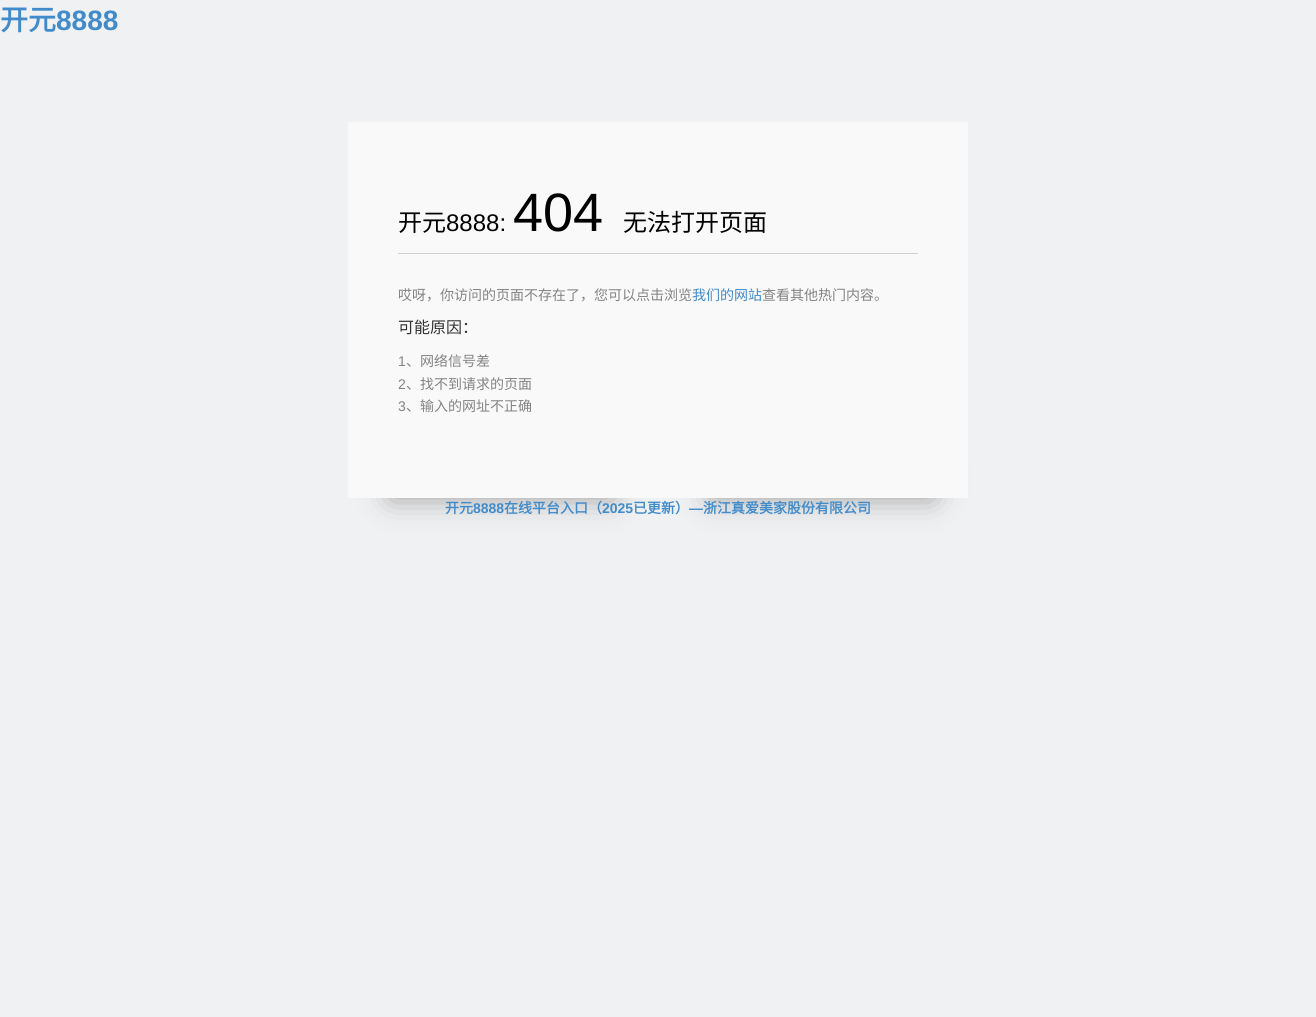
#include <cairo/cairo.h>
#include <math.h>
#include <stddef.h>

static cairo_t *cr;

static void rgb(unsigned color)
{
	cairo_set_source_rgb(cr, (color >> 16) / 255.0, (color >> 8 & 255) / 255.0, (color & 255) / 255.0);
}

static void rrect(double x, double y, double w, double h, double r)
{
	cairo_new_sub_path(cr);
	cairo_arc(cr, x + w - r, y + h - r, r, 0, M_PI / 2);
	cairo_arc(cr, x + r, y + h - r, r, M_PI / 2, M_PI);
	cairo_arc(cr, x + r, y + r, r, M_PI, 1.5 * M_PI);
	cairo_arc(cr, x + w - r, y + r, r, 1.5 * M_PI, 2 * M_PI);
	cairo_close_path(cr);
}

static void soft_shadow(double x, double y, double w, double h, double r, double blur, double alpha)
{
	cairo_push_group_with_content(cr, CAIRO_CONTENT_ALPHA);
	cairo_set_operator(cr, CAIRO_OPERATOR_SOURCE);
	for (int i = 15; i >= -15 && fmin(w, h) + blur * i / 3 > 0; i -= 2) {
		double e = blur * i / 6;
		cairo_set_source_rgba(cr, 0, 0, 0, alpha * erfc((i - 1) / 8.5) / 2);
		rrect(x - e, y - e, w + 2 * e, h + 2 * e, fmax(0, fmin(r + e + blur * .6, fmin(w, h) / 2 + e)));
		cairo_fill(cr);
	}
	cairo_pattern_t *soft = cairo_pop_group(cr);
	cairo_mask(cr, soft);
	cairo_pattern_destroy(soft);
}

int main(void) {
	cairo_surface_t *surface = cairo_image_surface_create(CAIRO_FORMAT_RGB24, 1316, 1017);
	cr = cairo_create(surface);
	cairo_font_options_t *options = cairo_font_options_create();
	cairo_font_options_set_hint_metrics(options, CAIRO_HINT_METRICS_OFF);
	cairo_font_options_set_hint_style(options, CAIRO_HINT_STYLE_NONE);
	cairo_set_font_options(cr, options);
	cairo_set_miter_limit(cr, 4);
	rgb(0xf0f1f3);
	cairo_paint(cr);
	rgb(0x999999);
	soft_shadow(391, 465, 222, 32, 0, 15.5, 1);
	soft_shadow(711, 465, 222, 32, 0, 15.5, 1);
	rgb(0xf9f9f9);
	cairo_rectangle(cr, 348, 122, 620, 376);
	cairo_fill(cr);
	rgb(0xd0d0d0);
	cairo_rectangle(cr, 398, 253, 520, 1);
	cairo_fill(cr);
	cairo_select_font_face(cr, "Noto Sans CJK SC", CAIRO_FONT_SLANT_NORMAL, CAIRO_FONT_WEIGHT_BOLD);
	cairo_set_font_size(cr, 28);
	rgb(0x428bca);
	cairo_move_to(cr, 0, 30);
	cairo_show_text(cr, "开元");
	cairo_select_font_face(cr, "Liberation Sans", CAIRO_FONT_SLANT_NORMAL, CAIRO_FONT_WEIGHT_BOLD);
	cairo_move_to(cr, 56, 30);
	cairo_show_text(cr, "8888");
	cairo_select_font_face(cr, "Noto Sans CJK SC", CAIRO_FONT_SLANT_NORMAL, CAIRO_FONT_WEIGHT_NORMAL);
	cairo_set_font_size(cr, 24);
	rgb(0x000000);
	cairo_move_to(cr, 398, 231);
	cairo_show_text(cr, "开元");
	cairo_select_font_face(cr, "Liberation Sans", CAIRO_FONT_SLANT_NORMAL, CAIRO_FONT_WEIGHT_NORMAL);
	cairo_move_to(cr, 446, 231);
	cairo_show_text(cr, "8888:");
	cairo_set_font_size(cr, 54);
	cairo_move_to(cr, 513, 231);
	cairo_show_text(cr, "404");
	cairo_select_font_face(cr, "Noto Sans CJK SC", CAIRO_FONT_SLANT_NORMAL, CAIRO_FONT_WEIGHT_NORMAL);
	cairo_set_font_size(cr, 24);
	cairo_move_to(cr, 623, 231);
	cairo_show_text(cr, "无法打开页面");
	cairo_set_font_size(cr, 14);
	rgb(0x838383);
	cairo_move_to(cr, 398, 300);
	cairo_show_text(cr, "哎呀，你访问的页面不存在了，您可以点击浏览");
	rgb(0x428bca);
	cairo_move_to(cr, 692, 300);
	cairo_show_text(cr, "我们的网站");
	rgb(0x838383);
	cairo_move_to(cr, 762, 300);
	cairo_show_text(cr, "查看其他热门内容。");
	cairo_set_font_size(cr, 16);
	rgb(0x333333);
	cairo_move_to(cr, 398, 333);
	cairo_show_text(cr, "可能原因：");
	cairo_select_font_face(cr, "Liberation Sans", CAIRO_FONT_SLANT_NORMAL, CAIRO_FONT_WEIGHT_NORMAL);
	cairo_set_font_size(cr, 14);
	rgb(0x838383);
	cairo_move_to(cr, 398, 366);
	cairo_show_text(cr, "1");
	cairo_select_font_face(cr, "Noto Sans CJK SC", CAIRO_FONT_SLANT_NORMAL, CAIRO_FONT_WEIGHT_NORMAL);
	cairo_move_to(cr, 406, 366);
	cairo_show_text(cr, "、网络信号差");
	cairo_select_font_face(cr, "Liberation Sans", CAIRO_FONT_SLANT_NORMAL, CAIRO_FONT_WEIGHT_NORMAL);
	cairo_move_to(cr, 398, 389);
	cairo_show_text(cr, "2");
	cairo_select_font_face(cr, "Noto Sans CJK SC", CAIRO_FONT_SLANT_NORMAL, CAIRO_FONT_WEIGHT_NORMAL);
	cairo_move_to(cr, 406, 389);
	cairo_show_text(cr, "、找不到请求的页面");
	cairo_select_font_face(cr, "Liberation Sans", CAIRO_FONT_SLANT_NORMAL, CAIRO_FONT_WEIGHT_NORMAL);
	cairo_move_to(cr, 398, 411);
	cairo_show_text(cr, "3");
	cairo_select_font_face(cr, "Noto Sans CJK SC", CAIRO_FONT_SLANT_NORMAL, CAIRO_FONT_WEIGHT_NORMAL);
	cairo_move_to(cr, 406, 411);
	cairo_show_text(cr, "、输入的网址不正确");
	cairo_select_font_face(cr, "Noto Sans CJK SC", CAIRO_FONT_SLANT_NORMAL, CAIRO_FONT_WEIGHT_BOLD);
	rgb(0x428bca);
	cairo_move_to(cr, 445, 513);
	cairo_show_text(cr, "开元");
	cairo_select_font_face(cr, "Liberation Sans", CAIRO_FONT_SLANT_NORMAL, CAIRO_FONT_WEIGHT_BOLD);
	cairo_move_to(cr, 473, 513);
	cairo_show_text(cr, "8888");
	cairo_select_font_face(cr, "Noto Sans CJK SC", CAIRO_FONT_SLANT_NORMAL, CAIRO_FONT_WEIGHT_BOLD);
	cairo_move_to(cr, 504, 513);
	cairo_show_text(cr, "在线平台入口（");
	cairo_select_font_face(cr, "Liberation Sans", CAIRO_FONT_SLANT_NORMAL, CAIRO_FONT_WEIGHT_BOLD);
	cairo_move_to(cr, 602, 513);
	cairo_show_text(cr, "2025");
	cairo_select_font_face(cr, "Noto Sans CJK SC", CAIRO_FONT_SLANT_NORMAL, CAIRO_FONT_WEIGHT_BOLD);
	cairo_move_to(cr, 633, 513);
	cairo_show_text(cr, "已更新）");
	cairo_select_font_face(cr, "Liberation Sans", CAIRO_FONT_SLANT_NORMAL, CAIRO_FONT_WEIGHT_BOLD);
	cairo_move_to(cr, 689, 513);
	cairo_show_text(cr, "—");
	cairo_select_font_face(cr, "Noto Sans CJK SC", CAIRO_FONT_SLANT_NORMAL, CAIRO_FONT_WEIGHT_BOLD);
	cairo_move_to(cr, 703, 513);
	cairo_show_text(cr, "浙江真爱美家股份有限公司");
	cairo_surface_write_to_png(surface, "page.png");
	cairo_font_options_destroy(options);
	cairo_destroy(cr);
	cairo_surface_destroy(surface);
	return 0;
}
